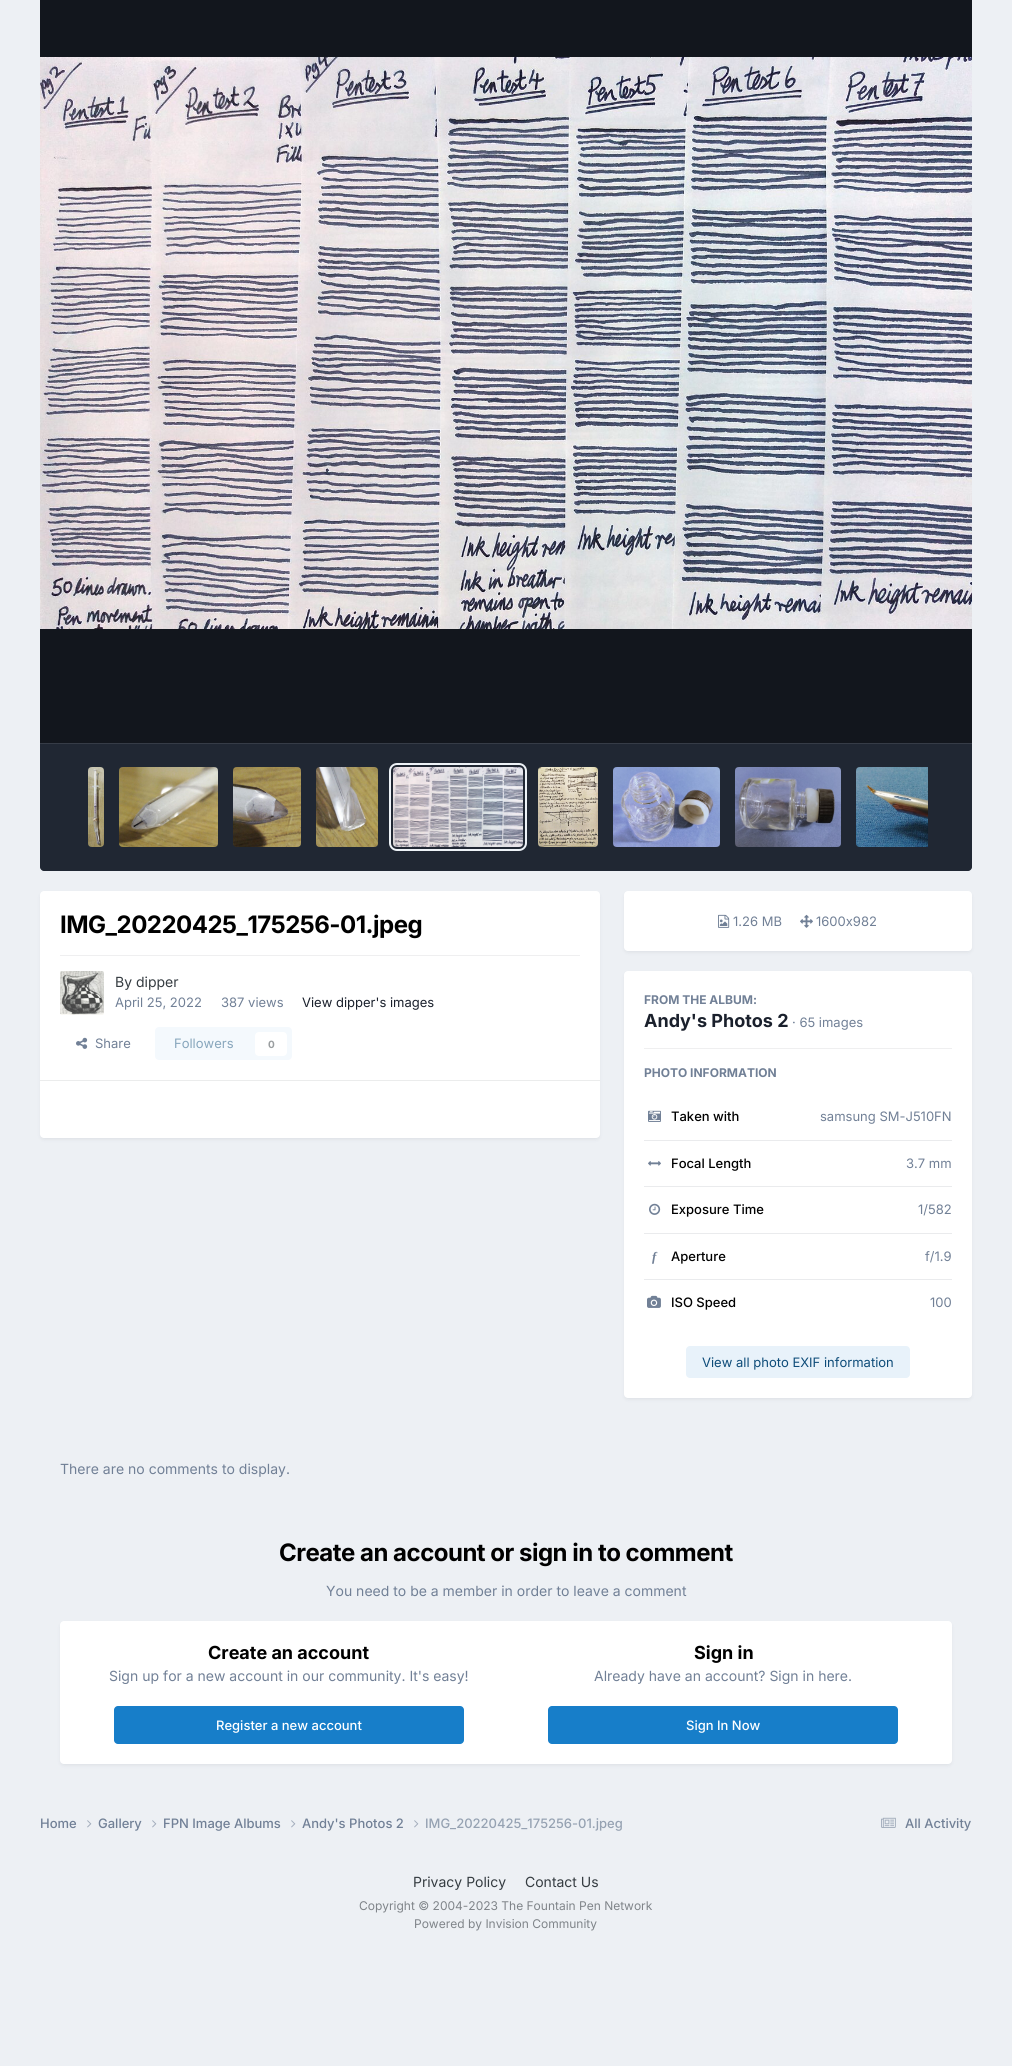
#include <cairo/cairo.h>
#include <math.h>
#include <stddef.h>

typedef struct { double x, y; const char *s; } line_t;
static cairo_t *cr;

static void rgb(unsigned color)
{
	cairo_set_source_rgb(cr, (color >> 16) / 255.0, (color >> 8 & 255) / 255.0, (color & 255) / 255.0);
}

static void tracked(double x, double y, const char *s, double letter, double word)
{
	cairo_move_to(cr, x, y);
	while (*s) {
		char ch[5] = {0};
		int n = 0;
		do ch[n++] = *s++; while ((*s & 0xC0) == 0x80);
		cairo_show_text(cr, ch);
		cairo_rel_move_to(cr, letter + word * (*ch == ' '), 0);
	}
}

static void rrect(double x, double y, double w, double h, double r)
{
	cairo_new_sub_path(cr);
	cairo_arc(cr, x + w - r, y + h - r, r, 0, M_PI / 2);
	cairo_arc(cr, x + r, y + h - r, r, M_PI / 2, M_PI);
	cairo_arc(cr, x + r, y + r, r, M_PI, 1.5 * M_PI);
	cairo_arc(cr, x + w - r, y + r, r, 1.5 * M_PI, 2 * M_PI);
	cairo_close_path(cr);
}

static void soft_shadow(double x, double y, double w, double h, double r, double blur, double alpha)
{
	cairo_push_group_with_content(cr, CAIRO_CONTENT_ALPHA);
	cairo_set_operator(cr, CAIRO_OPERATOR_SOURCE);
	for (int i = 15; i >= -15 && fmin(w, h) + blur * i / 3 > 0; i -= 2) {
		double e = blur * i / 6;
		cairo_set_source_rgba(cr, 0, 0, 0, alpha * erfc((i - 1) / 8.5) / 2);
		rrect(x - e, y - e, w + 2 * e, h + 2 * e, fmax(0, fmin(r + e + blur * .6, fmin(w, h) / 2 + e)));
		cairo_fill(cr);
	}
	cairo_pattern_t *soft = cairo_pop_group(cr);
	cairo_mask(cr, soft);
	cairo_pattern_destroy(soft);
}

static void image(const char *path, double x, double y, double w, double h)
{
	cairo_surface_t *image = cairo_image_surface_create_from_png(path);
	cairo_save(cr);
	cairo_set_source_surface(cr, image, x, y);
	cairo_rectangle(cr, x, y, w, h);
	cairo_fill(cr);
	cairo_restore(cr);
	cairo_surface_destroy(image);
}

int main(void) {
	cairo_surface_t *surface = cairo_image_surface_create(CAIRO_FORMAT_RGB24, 1012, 2066);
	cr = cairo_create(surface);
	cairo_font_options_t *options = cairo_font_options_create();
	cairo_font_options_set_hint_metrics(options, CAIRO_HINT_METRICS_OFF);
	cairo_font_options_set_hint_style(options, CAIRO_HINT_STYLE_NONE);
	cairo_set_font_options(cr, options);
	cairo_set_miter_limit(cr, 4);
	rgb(0xedf0f4);
	cairo_paint(cr);
	rgb(0x12161d);
	cairo_rectangle(cr, 40, 0, 932, 743);
	cairo_fill(cr);
	image("img/1.png", 40, 57, 932, 572);
	image("img/2.png", 56, 331, 17, 28);
	image("img/3.png", 939, 331, 16, 28);
	rgb(0x2d3748);
	cairo_new_path(cr);
	cairo_move_to(cr, 40, 743);
	cairo_line_to(cr, 972, 743);
	cairo_line_to(cr, 972, 867);
	cairo_curve_to(cr, 972, 869, 970, 871, 968, 871);
	cairo_line_to(cr, 44, 871);
	cairo_curve_to(cr, 42, 871, 40, 869, 40, 867);
	cairo_close_path(cr);
	cairo_fill(cr);
	cairo_set_source_rgba(cr, 0, 0, 0, 0.3);
	cairo_new_path(cr);
	cairo_move_to(cr, 40, 743);
	cairo_line_to(cr, 972, 743);
	cairo_line_to(cr, 972, 867);
	cairo_curve_to(cr, 972, 869, 970, 871, 968, 871);
	cairo_line_to(cr, 44, 871);
	cairo_curve_to(cr, 42, 871, 40, 869, 40, 867);
	cairo_close_path(cr);
	cairo_fill(cr);
	rgb(0x363c47);
	cairo_rectangle(cr, 40, 743, 932, 1);
	cairo_fill(cr);
	image("img/4.png", 88, 767, 16, 80);
	image("img/5.png", 119, 767, 99, 80);
	image("img/6.png", 233, 767, 68, 80);
	image("img/7.png", 316, 767, 62, 80);
	rrect(390, 764, 136, 86, 7);
	rgb(0xedf2f7);
	cairo_stroke(cr);
	image("img/8.png", 393, 767, 130, 80);
	image("img/9.png", 538, 767, 60, 80);
	image("img/10.png", 613, 767, 107, 80);
	image("img/11.png", 735, 767, 106, 80);
	image("img/12.png", 856, 767, 72, 80);
	rgb(0x2d3748);
	soft_shadow(41, 894, 558, 245, 3, 2, 0.1);
	rgb(0xffffff);
	rrect(40, 891, 560, 247, 4);
	cairo_fill(cr);
	rgb(0xefeff0);
	cairo_rectangle(cr, 60, 955, 520, 1);
	cairo_fill(cr);
	image("img/13.png", 60, 971, 44, 44);
	image("img/14.png", 76, 1037, 12, 12);
	rgb(0xf4f9fd);
	rrect(155, 1027, 137, 33, 4);
	cairo_fill(cr);
	rgb(0xffffff);
	rrect(255, 1032, 32, 24, 4);
	cairo_fill(cr);
	rgb(0xebecec);
	cairo_rectangle(cr, 40, 1080, 560, 1);
	cairo_fill(cr);
	rgb(0x2d3748);
	soft_shadow(625, 894, 346, 58, 3, 2, 0.1);
	rgb(0xffffff);
	rrect(624, 891, 348, 60, 4);
	cairo_fill(cr);
	image("img/15.png", 718, 914, 12, 14);
	image("img/16.png", 800, 914, 13, 14);
	rgb(0x2d3748);
	soft_shadow(625, 974, 346, 425, 3, 2, 0.1);
	rgb(0xffffff);
	rrect(624, 971, 348, 427, 4);
	cairo_fill(cr);
	rgb(0xefeff0);
	cairo_rectangle(cr, 644, 1048, 308, 1);
	cairo_fill(cr);
	rgb(0xeaebed);
	cairo_rectangle(cr, 644, 1140, 308, 1);
	cairo_fill(cr);
	image("img/17.png", 648, 1110, 13, 12);
	cairo_rectangle(cr, 644, 1186, 308, 1);
	cairo_fill(cr);
	image("img/18.png", 648, 1161, 13, 5);
	cairo_rectangle(cr, 644, 1233, 308, 1);
	cairo_fill(cr);
	image("img/19.png", 649, 1203, 12, 12);
	cairo_rectangle(cr, 644, 1279, 308, 1);
	cairo_fill(cr);
	image("img/20.png", 647, 1295, 14, 13);
	rgb(0xe8f2fa);
	rrect(686, 1346, 224, 32, 4);
	cairo_fill(cr);
	rgb(0x2d3748);
	soft_shadow(61, 1624, 890, 141, 3, 2, 0.1);
	rgb(0xffffff);
	rrect(60, 1621, 892, 143, 4);
	cairo_fill(cr);
	rgb(0x177ec9);
	rrect(114, 1706, 350, 38, 4);
	cairo_fill(cr);
	rrect(548, 1706, 350, 38, 4);
	cairo_fill(cr);
	image("img/21.png", 87, 1820, 5, 8);
	image("img/21.png", 152, 1820, 5, 8);
	image("img/21.png", 291, 1820, 5, 8);
	image("img/21.png", 414, 1820, 5, 8);
	image("img/22.png", 881, 1817, 15, 11);
	cairo_select_font_face(cr, "Inter", CAIRO_FONT_SLANT_NORMAL, CAIRO_FONT_WEIGHT_BOLD);
	cairo_set_font_size(cr, 24);
	rgb(0x000000);
	tracked(60, 933, "IMG_20220425_175256-01.jpeg", -0.5, 0);
	cairo_select_font_face(cr, "Inter", CAIRO_FONT_SLANT_NORMAL, CAIRO_FONT_WEIGHT_NORMAL);
	cairo_set_font_size(cr, 14);
	rgb(0x353c41);
	cairo_move_to(cr, 115, 987);
	cairo_show_text(cr, "By dipper");
	cairo_set_font_size(cr, 13);
	rgb(0x718096);
	cairo_move_to(cr, 115, 1007);
	cairo_show_text(cr, "April 25, 2022");
	cairo_move_to(cr, 221, 1007);
	cairo_show_text(cr, "387 views");
	rgb(0x1a202c);
	cairo_move_to(cr, 302, 1007);
	cairo_show_text(cr, "View dipper's images");
	rgb(0x718096);
	cairo_move_to(cr, 95, 1048);
	cairo_show_text(cr, "Share");
	rgb(0x87a6bc);
	cairo_move_to(cr, 174, 1048);
	cairo_show_text(cr, "Followers");
	cairo_select_font_face(cr, "Inter", CAIRO_FONT_SLANT_NORMAL, CAIRO_FONT_WEIGHT_BOLD);
	cairo_set_font_size(cr, 10);
	rgb(0x9a9ea0);
	cairo_move_to(cr, 268, 1048);
	cairo_show_text(cr, "0");
	cairo_select_font_face(cr, "Inter", CAIRO_FONT_SLANT_NORMAL, CAIRO_FONT_WEIGHT_NORMAL);
	cairo_set_font_size(cr, 13);
	rgb(0x718096);
	cairo_move_to(cr, 733, 926);
	cairo_show_text(cr, "1.26 MB");
	cairo_move_to(cr, 816, 926);
	cairo_show_text(cr, "1600x982");
	cairo_select_font_face(cr, "Inter", CAIRO_FONT_SLANT_NORMAL, CAIRO_FONT_WEIGHT_BOLD);
	cairo_set_font_size(cr, 12);
	cairo_move_to(cr, 644, 1004);
	cairo_show_text(cr, "FROM THE ALBUM:");
	cairo_set_font_size(cr, 18);
	rgb(0x1a202c);
	cairo_move_to(cr, 644, 1027);
	cairo_show_text(cr, "Andy's Photos 2");
	cairo_select_font_face(cr, "Inter", CAIRO_FONT_SLANT_NORMAL, CAIRO_FONT_WEIGHT_NORMAL);
	cairo_set_font_size(cr, 13);
	rgb(0x718096);
	cairo_move_to(cr, 792, 1027);
	cairo_show_text(cr, "· 65 images");
	cairo_select_font_face(cr, "Inter", CAIRO_FONT_SLANT_NORMAL, CAIRO_FONT_WEIGHT_BOLD);
	cairo_set_font_size(cr, 12);
	cairo_move_to(cr, 644, 1077);
	cairo_show_text(cr, "PHOTO INFORMATION");
	cairo_select_font_face(cr, "Inter Medium", CAIRO_FONT_SLANT_NORMAL, CAIRO_FONT_WEIGHT_NORMAL);
	cairo_set_font_size(cr, 13);
	rgb(0x000000);
	cairo_move_to(cr, 671, 1121);
	cairo_show_text(cr, "Taken with");
	cairo_select_font_face(cr, "Inter", CAIRO_FONT_SLANT_NORMAL, CAIRO_FONT_WEIGHT_NORMAL);
	rgb(0x718096);
	cairo_move_to(cr, 820, 1121);
	cairo_show_text(cr, "samsung SM-J510FN");
	cairo_select_font_face(cr, "Inter Medium", CAIRO_FONT_SLANT_NORMAL, CAIRO_FONT_WEIGHT_NORMAL);
	rgb(0x000000);
	cairo_move_to(cr, 671, 1168);
	cairo_show_text(cr, "Focal Length");
	cairo_select_font_face(cr, "Inter", CAIRO_FONT_SLANT_NORMAL, CAIRO_FONT_WEIGHT_NORMAL);
	rgb(0x718096);
	cairo_move_to(cr, 906, 1168);
	cairo_show_text(cr, "3.7 mm");
	cairo_select_font_face(cr, "Inter Medium", CAIRO_FONT_SLANT_NORMAL, CAIRO_FONT_WEIGHT_NORMAL);
	rgb(0x000000);
	cairo_move_to(cr, 671, 1214);
	cairo_show_text(cr, "Exposure Time");
	cairo_select_font_face(cr, "Inter", CAIRO_FONT_SLANT_NORMAL, CAIRO_FONT_WEIGHT_NORMAL);
	rgb(0x718096);
	cairo_move_to(cr, 918, 1214);
	cairo_show_text(cr, "1/582");
	cairo_select_font_face(cr, "Liberation Serif", CAIRO_FONT_SLANT_ITALIC, CAIRO_FONT_WEIGHT_BOLD);
	cairo_move_to(cr, 652, 1261);
	cairo_show_text(cr, "f");
	cairo_select_font_face(cr, "Inter Medium", CAIRO_FONT_SLANT_NORMAL, CAIRO_FONT_WEIGHT_NORMAL);
	rgb(0x000000);
	cairo_move_to(cr, 671, 1261);
	cairo_show_text(cr, "Aperture");
	cairo_select_font_face(cr, "Inter", CAIRO_FONT_SLANT_NORMAL, CAIRO_FONT_WEIGHT_NORMAL);
	rgb(0x718096);
	cairo_move_to(cr, 925, 1261);
	cairo_show_text(cr, "f/1.9");
	cairo_select_font_face(cr, "Inter Medium", CAIRO_FONT_SLANT_NORMAL, CAIRO_FONT_WEIGHT_NORMAL);
	rgb(0x000000);
	cairo_move_to(cr, 671, 1307);
	cairo_show_text(cr, "ISO Speed");
	cairo_select_font_face(cr, "Inter", CAIRO_FONT_SLANT_NORMAL, CAIRO_FONT_WEIGHT_NORMAL);
	rgb(0x718096);
	cairo_move_to(cr, 930, 1307);
	cairo_show_text(cr, "100");
	rgb(0x0e4c79);
	cairo_move_to(cr, 702, 1367);
	cairo_show_text(cr, "View all photo EXIF information");
	cairo_set_font_size(cr, 14);
	rgb(0x718096);
	cairo_move_to(cr, 60, 1474);
	cairo_show_text(cr, "There are no comments to display.");
	cairo_select_font_face(cr, "Inter", CAIRO_FONT_SLANT_NORMAL, CAIRO_FONT_WEIGHT_BOLD);
	cairo_set_font_size(cr, 24);
	rgb(0x000000);
	tracked(279, 1561, "Create an account or sign in to comment", -0.5, 0);
	cairo_select_font_face(cr, "Inter", CAIRO_FONT_SLANT_NORMAL, CAIRO_FONT_WEIGHT_NORMAL);
	cairo_set_font_size(cr, 14);
	rgb(0x718096);
	cairo_move_to(cr, 326, 1596);
	cairo_show_text(cr, "You need to be a member in order to leave a comment");
	cairo_select_font_face(cr, "Inter", CAIRO_FONT_SLANT_NORMAL, CAIRO_FONT_WEIGHT_BOLD);
	cairo_set_font_size(cr, 18);
	rgb(0x000000);
	cairo_move_to(cr, 208, 1659);
	cairo_show_text(cr, "Create an account");
	cairo_select_font_face(cr, "Inter", CAIRO_FONT_SLANT_NORMAL, CAIRO_FONT_WEIGHT_NORMAL);
	cairo_set_font_size(cr, 14);
	rgb(0x718096);
	cairo_move_to(cr, 109, 1681);
	cairo_show_text(cr, "Sign up for a new account in our community. It's easy!");
	cairo_select_font_face(cr, "Inter Medium", CAIRO_FONT_SLANT_NORMAL, CAIRO_FONT_WEIGHT_NORMAL);
	cairo_set_font_size(cr, 13);
	rgb(0xffffff);
	cairo_move_to(cr, 216, 1730);
	cairo_show_text(cr, "Register a new account");
	cairo_select_font_face(cr, "Inter", CAIRO_FONT_SLANT_NORMAL, CAIRO_FONT_WEIGHT_BOLD);
	cairo_set_font_size(cr, 18);
	rgb(0x000000);
	cairo_move_to(cr, 694, 1659);
	cairo_show_text(cr, "Sign in");
	cairo_select_font_face(cr, "Inter", CAIRO_FONT_SLANT_NORMAL, CAIRO_FONT_WEIGHT_NORMAL);
	cairo_set_font_size(cr, 14);
	rgb(0x718096);
	cairo_move_to(cr, 594, 1681);
	cairo_show_text(cr, "Already have an account? Sign in here.");
	cairo_select_font_face(cr, "Inter Medium", CAIRO_FONT_SLANT_NORMAL, CAIRO_FONT_WEIGHT_NORMAL);
	cairo_set_font_size(cr, 13);
	rgb(0xffffff);
	cairo_move_to(cr, 686, 1730);
	cairo_show_text(cr, "Sign In Now");
	rgb(0x718096);
	{
		static const line_t items[] = {
			{40, 1828, "Home"},
			{98, 1828, "Gallery"},
			{163, 1828, "FPN Image Albums"},
			{302, 1828, "Andy's Photos 2"},
		};
		for (size_t i = 0; i < sizeof items / sizeof *items; i++) {
			cairo_move_to(cr, items[i].x, items[i].y);
			cairo_show_text(cr, items[i].s);
		}
	}
	rgb(0x96a2b2);
	cairo_move_to(cr, 425, 1828);
	cairo_show_text(cr, "IMG_20220425_175256-01.jpeg");
	rgb(0x718096);
	cairo_move_to(cr, 905, 1828);
	cairo_show_text(cr, "All Activity");
	cairo_select_font_face(cr, "Inter", CAIRO_FONT_SLANT_NORMAL, CAIRO_FONT_WEIGHT_NORMAL);
	cairo_set_font_size(cr, 14);
	rgb(0x353c41);
	cairo_move_to(cr, 413, 1887);
	cairo_show_text(cr, "Privacy Policy");
	cairo_move_to(cr, 525, 1887);
	cairo_show_text(cr, "Contact Us");
	cairo_set_font_size(cr, 12);
	rgb(0x7f8489);
	cairo_move_to(cr, 359, 1910);
	cairo_show_text(cr, "Copyright © 2004-2023 The Fountain Pen Network");
	cairo_move_to(cr, 414, 1928);
	cairo_show_text(cr, "Powered by Invision Community");
	cairo_surface_write_to_png(surface, "page.png");
	cairo_font_options_destroy(options);
	cairo_destroy(cr);
	cairo_surface_destroy(surface);
	return 0;
}
